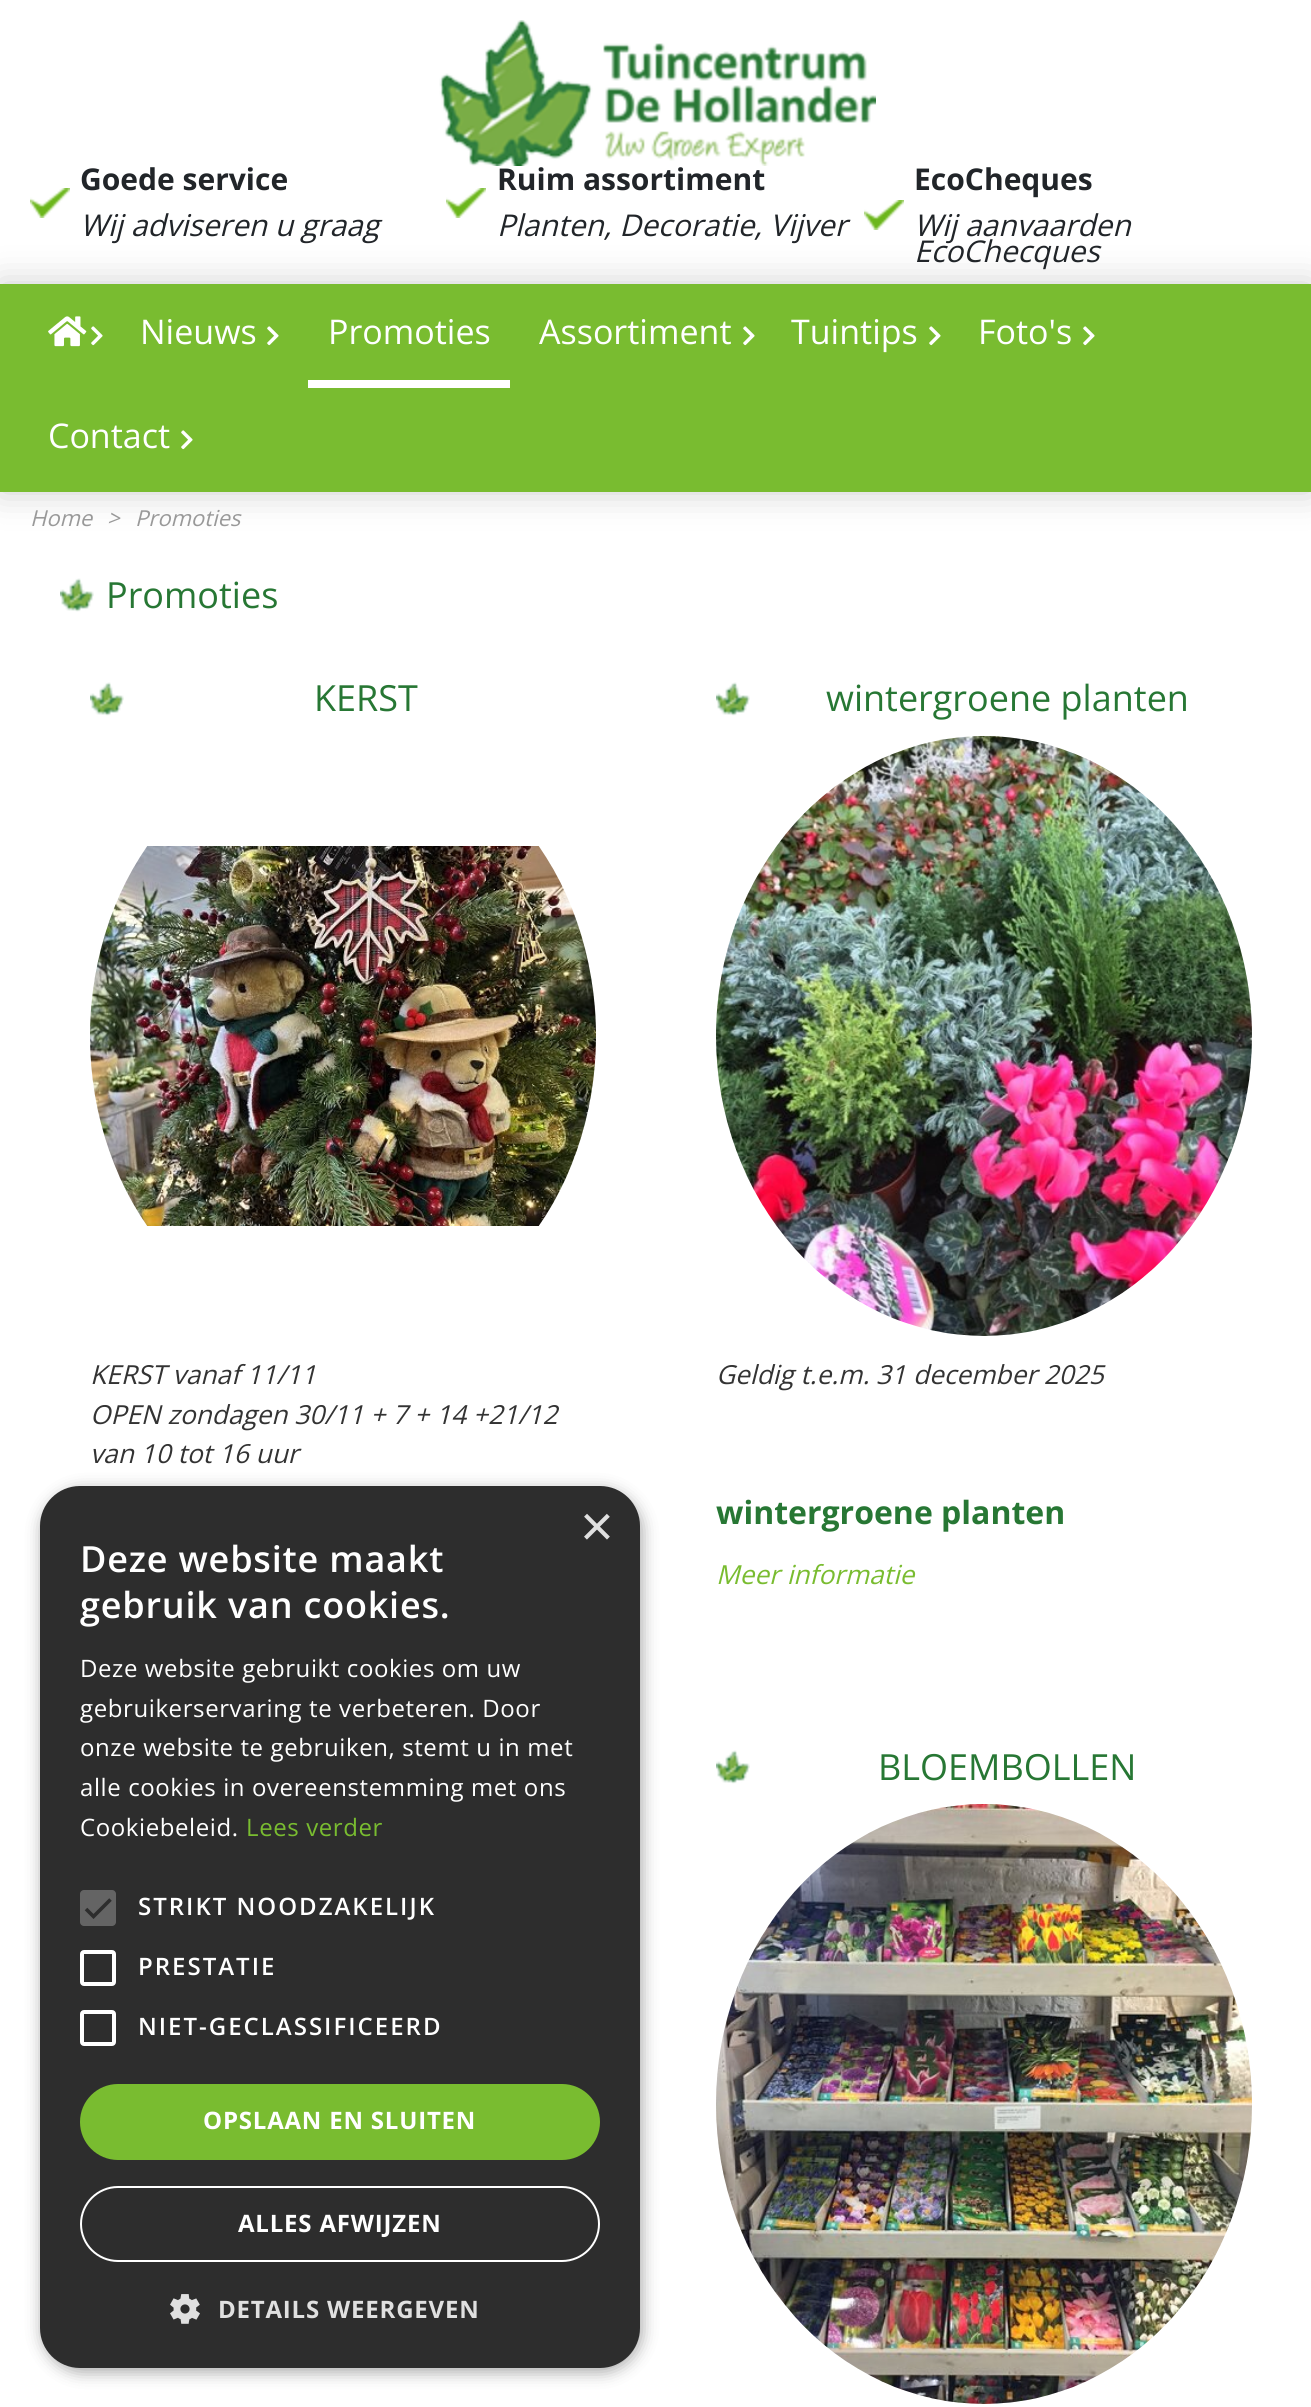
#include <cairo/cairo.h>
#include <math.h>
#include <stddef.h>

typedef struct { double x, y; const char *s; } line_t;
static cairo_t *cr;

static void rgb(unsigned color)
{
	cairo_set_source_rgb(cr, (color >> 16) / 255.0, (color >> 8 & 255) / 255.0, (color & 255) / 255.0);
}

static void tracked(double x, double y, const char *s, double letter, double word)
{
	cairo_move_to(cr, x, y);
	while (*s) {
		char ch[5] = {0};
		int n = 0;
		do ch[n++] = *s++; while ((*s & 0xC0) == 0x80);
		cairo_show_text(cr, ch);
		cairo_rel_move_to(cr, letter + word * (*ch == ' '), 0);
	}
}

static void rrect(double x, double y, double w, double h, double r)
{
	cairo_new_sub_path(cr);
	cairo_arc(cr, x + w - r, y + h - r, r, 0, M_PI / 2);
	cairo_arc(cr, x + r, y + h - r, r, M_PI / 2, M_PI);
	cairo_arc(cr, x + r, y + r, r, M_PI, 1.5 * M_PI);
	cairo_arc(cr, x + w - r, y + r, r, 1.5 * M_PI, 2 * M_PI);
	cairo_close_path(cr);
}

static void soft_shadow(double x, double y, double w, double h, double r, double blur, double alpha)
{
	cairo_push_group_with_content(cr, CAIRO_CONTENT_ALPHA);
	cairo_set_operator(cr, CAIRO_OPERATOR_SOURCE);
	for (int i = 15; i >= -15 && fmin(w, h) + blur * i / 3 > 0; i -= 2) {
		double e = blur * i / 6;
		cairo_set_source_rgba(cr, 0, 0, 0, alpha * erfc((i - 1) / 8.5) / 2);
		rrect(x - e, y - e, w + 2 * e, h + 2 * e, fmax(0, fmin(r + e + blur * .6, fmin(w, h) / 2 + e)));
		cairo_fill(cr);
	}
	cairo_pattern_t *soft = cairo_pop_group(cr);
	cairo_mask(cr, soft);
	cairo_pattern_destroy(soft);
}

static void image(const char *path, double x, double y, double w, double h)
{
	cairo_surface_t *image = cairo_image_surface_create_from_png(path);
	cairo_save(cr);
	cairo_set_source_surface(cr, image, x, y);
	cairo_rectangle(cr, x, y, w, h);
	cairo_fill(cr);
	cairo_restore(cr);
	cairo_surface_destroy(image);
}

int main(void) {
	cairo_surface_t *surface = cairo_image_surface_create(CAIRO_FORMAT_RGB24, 1311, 2407);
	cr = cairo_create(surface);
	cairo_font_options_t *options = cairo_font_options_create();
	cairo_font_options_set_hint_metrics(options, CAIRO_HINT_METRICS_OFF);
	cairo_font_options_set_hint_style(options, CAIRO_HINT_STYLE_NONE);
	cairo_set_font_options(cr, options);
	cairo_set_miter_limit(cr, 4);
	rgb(0xffffff);
	cairo_paint(cr);
	image("img/1.png", 439, 20, 437, 146);
	image("img/2.png", 30, 188, 40, 30);
	image("img/2.png", 446, 188, 40, 30);
	image("img/2.png", 864, 200, 40, 30);
	rgb(0x000000);
	soft_shadow(0, 284, 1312, 208, 0, 18, 0.2);
	rgb(0x79bc30);
	cairo_rectangle(cr, 0, 284, 1311, 208);
	cairo_fill(cr);
	image("img/3.png", 48, 316, 39, 31);
	image("img/4.png", 91, 326, 12, 20);
	image("img/4.png", 267, 326, 12, 20);
	rgb(0xffffff);
	cairo_rectangle(cr, 308, 380, 202, 8);
	cairo_fill(cr);
	image("img/4.png", 743, 326, 12, 20);
	image("img/4.png", 929, 326, 12, 20);
	image("img/4.png", 1083, 326, 12, 20);
	image("img/4.png", 181, 430, 12, 20);
	image("img/5.png", 60, 578, 34, 34);
	image("img/5.png", 90, 682, 34, 34);
	image("img/6.png", 90, 846, 506, 380);
	image("img/5.png", 716, 682, 34, 34);
	image("img/7.png", 716, 736, 536, 600);
	image("img/5.png", 716, 1750, 34, 34);
	image("img/8.png", 716, 1804, 536, 600);
	rgb(0x000000);
	soft_shadow(42, 1490, 600, 882, 40, 8, 0.35);
	rgb(0x2d2d2d);
	rrect(40, 1486, 600, 882, 40);
	cairo_fill(cr);
	rgb(0x646464);
	rrect(80, 1890, 36, 36, 4);
	cairo_fill(cr);
	cairo_new_path(cr);
	cairo_move_to(cr, 86, 1909);
	cairo_line_to(cr, 93.5, 1916.5);
	cairo_line_to(cr, 110.5, 1899.5);
	rgb(0x2d2d2d);
	cairo_set_line_width(cr, 3.6);
	cairo_stroke(cr);
	rrect(82, 1952, 32, 32, 2);
	rgb(0xffffff);
	cairo_set_line_width(cr, 4);
	cairo_stroke(cr);
	rrect(82, 2012, 32, 32, 2);
	cairo_stroke(cr);
	rgb(0x79bc30);
	rrect(80, 2084, 520, 76, 38);
	cairo_fill(cr);
	rrect(81, 2187, 518, 74, 37);
	rgb(0xffffff);
	cairo_set_line_width(cr, 2);
	cairo_stroke(cr);
	image("img/9.png", 170, 2294, 30, 30);
	cairo_select_font_face(cr, "Open Sans", CAIRO_FONT_SLANT_NORMAL, CAIRO_FONT_WEIGHT_BOLD);
	cairo_set_font_size(cr, 30);
	rgb(0x212529);
	cairo_move_to(cr, 80, 190);
	cairo_show_text(cr, "Goede service");
	cairo_select_font_face(cr, "Open Sans", CAIRO_FONT_SLANT_ITALIC, CAIRO_FONT_WEIGHT_NORMAL);
	cairo_move_to(cr, 80, 236);
	cairo_show_text(cr, "Wij adviseren u graag");
	cairo_select_font_face(cr, "Open Sans", CAIRO_FONT_SLANT_NORMAL, CAIRO_FONT_WEIGHT_BOLD);
	cairo_move_to(cr, 497, 190);
	cairo_show_text(cr, "Ruim assortiment");
	cairo_select_font_face(cr, "Open Sans", CAIRO_FONT_SLANT_ITALIC, CAIRO_FONT_WEIGHT_NORMAL);
	cairo_move_to(cr, 497, 236);
	cairo_show_text(cr, "Planten, Decoratie, Vijver");
	cairo_select_font_face(cr, "Open Sans", CAIRO_FONT_SLANT_NORMAL, CAIRO_FONT_WEIGHT_BOLD);
	cairo_move_to(cr, 914, 190);
	cairo_show_text(cr, "EcoCheques");
	cairo_select_font_face(cr, "Open Sans", CAIRO_FONT_SLANT_ITALIC, CAIRO_FONT_WEIGHT_NORMAL);
	cairo_move_to(cr, 914, 236);
	cairo_show_text(cr, "Wij aanvaarden");
	cairo_move_to(cr, 914, 262);
	cairo_show_text(cr, "EcoChecques");
	cairo_select_font_face(cr, "Open Sans", CAIRO_FONT_SLANT_NORMAL, CAIRO_FONT_WEIGHT_NORMAL);
	cairo_set_font_size(cr, 34);
	rgb(0xffffff);
	{
		static const line_t items[] = {
			{140, 344, "Nieuws"},
			{328, 344, "Promoties"},
			{539, 344, "Assortiment"},
			{791, 344, "Tuintips"},
			{978, 344, "Foto's"},
			{48, 448, "Contact"},
		};
		for (size_t i = 0; i < sizeof items / sizeof *items; i++) {
			cairo_move_to(cr, items[i].x, items[i].y);
			cairo_show_text(cr, items[i].s);
		}
	}
	cairo_select_font_face(cr, "Open Sans", CAIRO_FONT_SLANT_ITALIC, CAIRO_FONT_WEIGHT_NORMAL);
	cairo_set_font_size(cr, 22);
	rgb(0x999999);
	{
		static const line_t items[] = {
			{30, 526, "Home"},
			{107, 526, ">"},
			{135, 526, "Promoties"},
		};
		for (size_t i = 0; i < sizeof items / sizeof *items; i++) {
			cairo_move_to(cr, items[i].x, items[i].y);
			cairo_show_text(cr, items[i].s);
		}
	}
	cairo_select_font_face(cr, "Open Sans", CAIRO_FONT_SLANT_NORMAL, CAIRO_FONT_WEIGHT_NORMAL);
	cairo_set_font_size(cr, 36);
	rgb(0x277734);
	cairo_move_to(cr, 106, 608);
	cairo_show_text(cr, "Promoties");
	cairo_move_to(cr, 314, 711);
	cairo_show_text(cr, "KERST");
	cairo_select_font_face(cr, "Open Sans", CAIRO_FONT_SLANT_ITALIC, CAIRO_FONT_WEIGHT_NORMAL);
	cairo_set_font_size(cr, 26.25);
	rgb(0x333333);
	{
		static const line_t items[] = {
			{90, 1384, "KERST vanaf 11/11"},
			{90, 1424, "OPEN zondagen 30/11 + 7 + 14 +21/12"},
			{90, 1463, "van 10 tot 16 uur"},
		};
		for (size_t i = 0; i < sizeof items / sizeof *items; i++) {
			cairo_move_to(cr, items[i].x, items[i].y);
			cairo_show_text(cr, items[i].s);
		}
	}
	cairo_select_font_face(cr, "Open Sans", CAIRO_FONT_SLANT_NORMAL, CAIRO_FONT_WEIGHT_NORMAL);
	cairo_set_font_size(cr, 36);
	rgb(0x277734);
	cairo_move_to(cr, 826, 711);
	cairo_show_text(cr, "wintergroene planten");
	cairo_select_font_face(cr, "Open Sans", CAIRO_FONT_SLANT_ITALIC, CAIRO_FONT_WEIGHT_NORMAL);
	cairo_set_font_size(cr, 26.25);
	rgb(0x333333);
	cairo_move_to(cr, 716, 1384);
	cairo_show_text(cr, "Geldig t.e.m. 31 december 2025");
	cairo_select_font_face(cr, "Open Sans", CAIRO_FONT_SLANT_NORMAL, CAIRO_FONT_WEIGHT_BOLD);
	cairo_set_font_size(cr, 32);
	rgb(0x277734);
	cairo_move_to(cr, 716, 1524);
	cairo_show_text(cr, "wintergroene planten");
	cairo_select_font_face(cr, "Open Sans", CAIRO_FONT_SLANT_ITALIC, CAIRO_FONT_WEIGHT_NORMAL);
	cairo_set_font_size(cr, 26.25);
	rgb(0x79bc30);
	cairo_move_to(cr, 716, 1584);
	cairo_show_text(cr, "Meer informatie");
	cairo_select_font_face(cr, "Open Sans", CAIRO_FONT_SLANT_NORMAL, CAIRO_FONT_WEIGHT_NORMAL);
	cairo_set_font_size(cr, 36);
	rgb(0x277734);
	cairo_move_to(cr, 878, 1780);
	cairo_show_text(cr, "BLOEMBOLLEN");
	cairo_select_font_face(cr, "Liberation Sans", CAIRO_FONT_SLANT_NORMAL, CAIRO_FONT_WEIGHT_NORMAL);
	cairo_set_font_size(cr, 58);
	rgb(0xe0e0e0);
	cairo_move_to(cr, 580, 1546);
	cairo_show_text(cr, "×");
	cairo_select_font_face(cr, "Open Sans SemiBold", CAIRO_FONT_SLANT_NORMAL, CAIRO_FONT_WEIGHT_NORMAL);
	cairo_set_font_size(cr, 36);
	rgb(0xffffff);
	tracked(80, 1572, "Deze website maakt", 0.8, 0);
	tracked(80, 1618, "gebruik van cookies.", 0.8, 0);
	cairo_select_font_face(cr, "Open Sans", CAIRO_FONT_SLANT_NORMAL, CAIRO_FONT_WEIGHT_NORMAL);
	cairo_set_font_size(cr, 24);
	{
		static const line_t items[] = {
			{80, 1677, "Deze website gebruikt cookies om uw"},
			{80, 1717, "gebruikerservaring te verbeteren. Door"},
			{80, 1756, "onze website te gebruiken, stemt u in met"},
			{80, 1796, "alle cookies in overeenstemming met ons"},
			{80, 1836, "Cookiebeleid."},
		};
		for (size_t i = 0; i < sizeof items / sizeof *items; i++) {
			tracked(items[i].x, items[i].y, items[i].s, 0.6, 0);
		}
	}
	rgb(0x79bc30);
	tracked(246, 1836, "Lees verder", 0.6, 0);
	cairo_select_font_face(cr, "Open Sans SemiBold", CAIRO_FONT_SLANT_NORMAL, CAIRO_FONT_WEIGHT_NORMAL);
	rgb(0xffffff);
	{
		static const line_t items[] = {
			{138, 1915, "STRIKT NOODZAKELIJK"},
			{138, 1975, "PRESTATIE"},
			{138, 2035, "NIET-GECLASSIFICEERD"},
		};
		for (size_t i = 0; i < sizeof items / sizeof *items; i++) {
			tracked(items[i].x, items[i].y, items[i].s, 2, 0);
		}
	}
	cairo_select_font_face(cr, "Open Sans", CAIRO_FONT_SLANT_NORMAL, CAIRO_FONT_WEIGHT_BOLD);
	tracked(203, 2129, "OPSLAAN EN SLUITEN", 0.8, 0);
	tracked(238, 2232, "ALLES AFWIJZEN", 0.8, 0);
	rgb(0xe0e0e0);
	tracked(218, 2318, "DETAILS WEERGEVEN", 0.8, 0);
	cairo_surface_write_to_png(surface, "page.png");
	cairo_font_options_destroy(options);
	cairo_destroy(cr);
	cairo_surface_destroy(surface);
	return 0;
}
